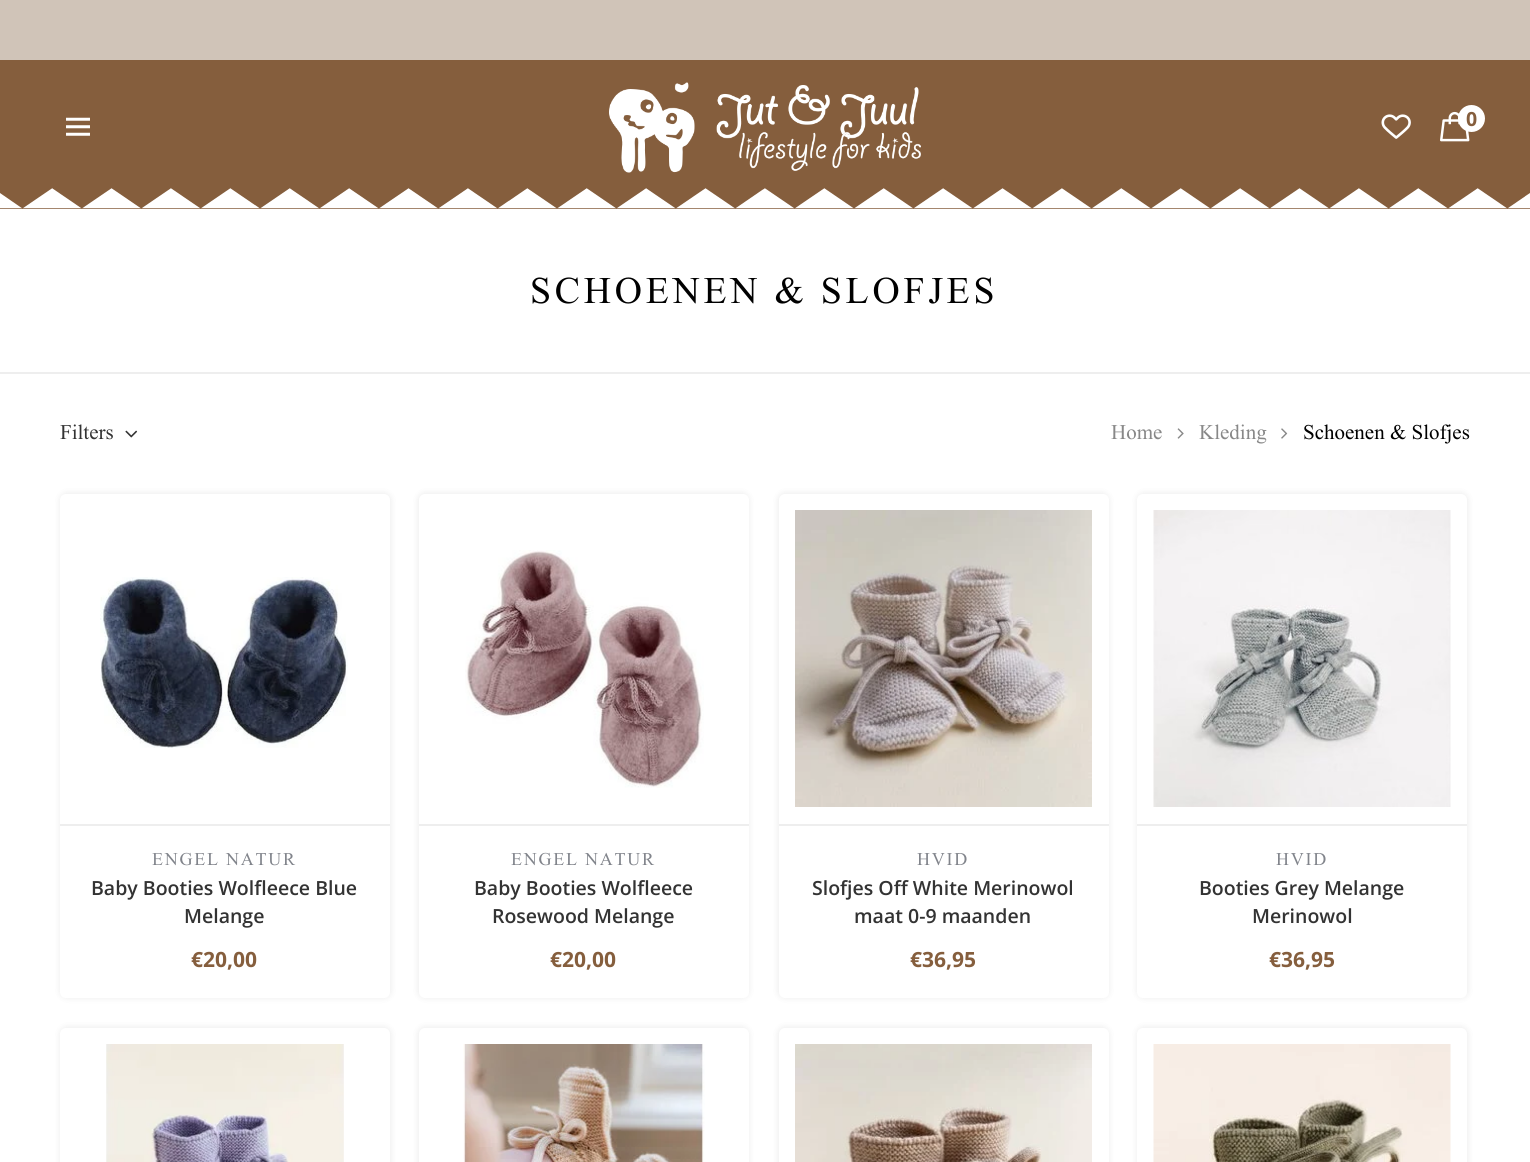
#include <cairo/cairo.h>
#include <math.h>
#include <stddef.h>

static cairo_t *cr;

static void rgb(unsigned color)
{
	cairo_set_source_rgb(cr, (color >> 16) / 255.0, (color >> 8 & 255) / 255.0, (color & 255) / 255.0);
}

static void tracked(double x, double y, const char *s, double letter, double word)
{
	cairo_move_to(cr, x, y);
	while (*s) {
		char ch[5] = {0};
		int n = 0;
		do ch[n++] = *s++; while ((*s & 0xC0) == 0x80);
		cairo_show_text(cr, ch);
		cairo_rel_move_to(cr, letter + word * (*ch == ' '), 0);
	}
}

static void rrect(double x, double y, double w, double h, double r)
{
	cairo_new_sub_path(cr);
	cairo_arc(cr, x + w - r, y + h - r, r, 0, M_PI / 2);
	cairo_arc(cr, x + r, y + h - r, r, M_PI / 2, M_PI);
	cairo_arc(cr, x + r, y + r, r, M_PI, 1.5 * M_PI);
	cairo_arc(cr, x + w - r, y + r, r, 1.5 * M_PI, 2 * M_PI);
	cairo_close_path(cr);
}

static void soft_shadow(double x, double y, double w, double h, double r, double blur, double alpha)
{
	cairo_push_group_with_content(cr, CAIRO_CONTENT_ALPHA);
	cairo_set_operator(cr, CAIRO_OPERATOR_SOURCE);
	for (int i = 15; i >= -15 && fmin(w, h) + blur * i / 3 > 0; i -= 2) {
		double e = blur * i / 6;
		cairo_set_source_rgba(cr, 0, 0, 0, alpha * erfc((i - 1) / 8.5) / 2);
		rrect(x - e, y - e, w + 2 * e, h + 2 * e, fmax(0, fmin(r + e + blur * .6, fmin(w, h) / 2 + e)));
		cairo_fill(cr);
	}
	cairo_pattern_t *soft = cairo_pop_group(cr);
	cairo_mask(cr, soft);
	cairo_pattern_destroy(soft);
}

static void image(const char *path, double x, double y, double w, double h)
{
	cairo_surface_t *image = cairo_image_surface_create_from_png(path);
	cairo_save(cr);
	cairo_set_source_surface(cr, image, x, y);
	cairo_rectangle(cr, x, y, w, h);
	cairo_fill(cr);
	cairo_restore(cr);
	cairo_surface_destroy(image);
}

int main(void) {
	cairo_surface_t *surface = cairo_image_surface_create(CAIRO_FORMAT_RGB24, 1530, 1162);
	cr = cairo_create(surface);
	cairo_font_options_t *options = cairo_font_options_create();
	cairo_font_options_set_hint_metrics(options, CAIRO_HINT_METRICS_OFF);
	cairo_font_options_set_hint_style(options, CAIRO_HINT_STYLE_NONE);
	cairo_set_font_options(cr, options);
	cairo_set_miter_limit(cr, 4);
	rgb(0xffffff);
	cairo_paint(cr);
	rgb(0x855e3d);
	cairo_rectangle(cr, 0, 60, 1530, 149);
	cairo_fill(cr);
	rgb(0xd0c4b8);
	cairo_rectangle(cr, 0, 0, 1530, 60);
	cairo_fill(cr);
	image("img/1.png", 66, 117, 24, 19);
	image("img/2.png", 609, 82, 312, 91);
	image("img/3.png", 1381, 114, 30, 25);
	image("img/4.png", 1440, 111, 30, 31);
	rgb(0xffffff);
	cairo_arc(cr, 1471.5, 118.5, 13.5, 0, 2 * M_PI);
	cairo_fill(cr);
	image("img/5.png", 0, 188, 1530, 21);
	rgb(0xeeeeee);
	cairo_rectangle(cr, 0, 372, 1530, 2);
	cairo_fill(cr);
	image("img/6.png", 125, 430, 13, 8);
	image("img/7.png", 1177, 428, 7, 11);
	image("img/8.png", 1281, 428, 7, 11);
	rgb(0x000000);
	soft_shadow(59, 492, 333, 507, 8, 3, 0.06);
	rgb(0xffffff);
	rrect(60, 494, 330, 504, 6);
	cairo_fill(cr);
	image("img/9.png", 100, 577, 248, 171);
	rgb(0xeeeeee);
	cairo_rectangle(cr, 60, 824, 330, 2);
	cairo_fill(cr);
	rgb(0x000000);
	soft_shadow(417, 492, 333, 507, 8, 3, 0.06);
	rgb(0xffffff);
	rrect(419, 494, 330, 504, 6);
	cairo_fill(cr);
	image("img/10.png", 465, 550, 239, 238);
	rgb(0xeeeeee);
	cairo_rectangle(cr, 419, 824, 330, 2);
	cairo_fill(cr);
	rgb(0x000000);
	soft_shadow(777, 492, 333, 507, 8, 3, 0.06);
	rgb(0xffffff);
	rrect(779, 494, 330, 504, 6);
	cairo_fill(cr);
	image("img/11.png", 795, 510, 297, 297);
	rgb(0xeeeeee);
	cairo_rectangle(cr, 779, 824, 330, 2);
	cairo_fill(cr);
	rgb(0x000000);
	soft_shadow(1136, 492, 333, 507, 8, 3, 0.06);
	rgb(0xffffff);
	rrect(1137, 494, 330, 504, 6);
	cairo_fill(cr);
	image("img/12.png", 1153, 510, 298, 297);
	rgb(0xeeeeee);
	cairo_rectangle(cr, 1137, 824, 330, 2);
	cairo_fill(cr);
	rgb(0x000000);
	soft_shadow(59, 1026, 333, 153, 8, 3, 0.06);
	rgb(0xffffff);
	rrect(60, 1028, 330, 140, 6);
	cairo_fill(cr);
	image("img/13.png", 106, 1044, 238, 118);
	rgb(0x000000);
	soft_shadow(417, 1026, 333, 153, 8, 3, 0.06);
	rgb(0xffffff);
	rrect(419, 1028, 330, 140, 6);
	cairo_fill(cr);
	image("img/14.png", 463, 1044, 242, 118);
	rgb(0x000000);
	soft_shadow(777, 1026, 333, 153, 8, 3, 0.06);
	rgb(0xffffff);
	rrect(779, 1028, 330, 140, 6);
	cairo_fill(cr);
	image("img/15.png", 795, 1044, 297, 118);
	rgb(0x000000);
	soft_shadow(1136, 1026, 333, 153, 8, 3, 0.06);
	rgb(0xffffff);
	rrect(1137, 1028, 330, 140, 6);
	cairo_fill(cr);
	image("img/16.png", 1153, 1044, 298, 118);
	cairo_select_font_face(cr, "Open Sans", CAIRO_FONT_SLANT_NORMAL, CAIRO_FONT_WEIGHT_BOLD);
	cairo_set_font_size(cr, 19.5);
	rgb(0x855e3d);
	cairo_move_to(cr, 1466, 126);
	cairo_show_text(cr, "0");
	cairo_select_font_face(cr, "Times New Roman", CAIRO_FONT_SLANT_NORMAL, CAIRO_FONT_WEIGHT_NORMAL);
	cairo_set_font_size(cr, 37.75);
	rgb(0x000000);
	tracked(530, 303, "SCHOENEN & SLOFJES", 3.75, 0);
	cairo_set_font_size(cr, 21);
	rgb(0x333333);
	cairo_move_to(cr, 60, 439);
	cairo_show_text(cr, "Filters");
	rgb(0x888888);
	cairo_move_to(cr, 1111, 439);
	cairo_show_text(cr, "Home");
	cairo_move_to(cr, 1199, 439);
	cairo_show_text(cr, "Kleding");
	rgb(0x000000);
	cairo_move_to(cr, 1303, 439);
	cairo_show_text(cr, "Schoenen & Slofjes");
	cairo_set_font_size(cr, 18);
	rgb(0x81848b);
	tracked(152, 865, "ENGEL NATUR", 1.75, 0);
	cairo_select_font_face(cr, "Open Sans SemiBold", CAIRO_FONT_SLANT_NORMAL, CAIRO_FONT_WEIGHT_NORMAL);
	cairo_set_font_size(cr, 19.5);
	rgb(0x333333);
	cairo_move_to(cr, 91, 895);
	cairo_show_text(cr, "Baby Booties Wolfleece Blue");
	cairo_move_to(cr, 184, 923);
	cairo_show_text(cr, "Melange");
	cairo_select_font_face(cr, "Open Sans", CAIRO_FONT_SLANT_NORMAL, CAIRO_FONT_WEIGHT_BOLD);
	cairo_set_font_size(cr, 21);
	rgb(0x855e3d);
	cairo_move_to(cr, 191, 967);
	cairo_show_text(cr, "€20,00");
	cairo_select_font_face(cr, "Times New Roman", CAIRO_FONT_SLANT_NORMAL, CAIRO_FONT_WEIGHT_NORMAL);
	cairo_set_font_size(cr, 18);
	rgb(0x81848b);
	tracked(511, 865, "ENGEL NATUR", 1.75, 0);
	cairo_select_font_face(cr, "Open Sans SemiBold", CAIRO_FONT_SLANT_NORMAL, CAIRO_FONT_WEIGHT_NORMAL);
	cairo_set_font_size(cr, 19.5);
	rgb(0x333333);
	cairo_move_to(cr, 474, 895);
	cairo_show_text(cr, "Baby Booties Wolfleece");
	cairo_move_to(cr, 492, 923);
	cairo_show_text(cr, "Rosewood Melange");
	cairo_select_font_face(cr, "Open Sans", CAIRO_FONT_SLANT_NORMAL, CAIRO_FONT_WEIGHT_BOLD);
	cairo_set_font_size(cr, 21);
	rgb(0x855e3d);
	cairo_move_to(cr, 550, 967);
	cairo_show_text(cr, "€20,00");
	cairo_select_font_face(cr, "Times New Roman", CAIRO_FONT_SLANT_NORMAL, CAIRO_FONT_WEIGHT_NORMAL);
	cairo_set_font_size(cr, 18);
	rgb(0x81848b);
	tracked(917, 865, "HVID", 1.75, 0);
	cairo_select_font_face(cr, "Open Sans SemiBold", CAIRO_FONT_SLANT_NORMAL, CAIRO_FONT_WEIGHT_NORMAL);
	cairo_set_font_size(cr, 19.5);
	rgb(0x333333);
	cairo_move_to(cr, 812, 895);
	cairo_show_text(cr, "Slofjes Off White Merinowol");
	cairo_move_to(cr, 854, 923);
	cairo_show_text(cr, "maat 0-9 maanden");
	cairo_select_font_face(cr, "Open Sans", CAIRO_FONT_SLANT_NORMAL, CAIRO_FONT_WEIGHT_BOLD);
	cairo_set_font_size(cr, 21);
	rgb(0x855e3d);
	cairo_move_to(cr, 910, 967);
	cairo_show_text(cr, "€36,95");
	cairo_select_font_face(cr, "Times New Roman", CAIRO_FONT_SLANT_NORMAL, CAIRO_FONT_WEIGHT_NORMAL);
	cairo_set_font_size(cr, 18);
	rgb(0x81848b);
	tracked(1276, 865, "HVID", 1.75, 0);
	cairo_select_font_face(cr, "Open Sans SemiBold", CAIRO_FONT_SLANT_NORMAL, CAIRO_FONT_WEIGHT_NORMAL);
	cairo_set_font_size(cr, 19.5);
	rgb(0x333333);
	cairo_move_to(cr, 1199, 895);
	cairo_show_text(cr, "Booties Grey Melange");
	cairo_move_to(cr, 1252, 923);
	cairo_show_text(cr, "Merinowol");
	cairo_select_font_face(cr, "Open Sans", CAIRO_FONT_SLANT_NORMAL, CAIRO_FONT_WEIGHT_BOLD);
	cairo_set_font_size(cr, 21);
	rgb(0x855e3d);
	cairo_move_to(cr, 1269, 967);
	cairo_show_text(cr, "€36,95");
	cairo_surface_write_to_png(surface, "page.png");
	cairo_font_options_destroy(options);
	cairo_destroy(cr);
	cairo_surface_destroy(surface);
	return 0;
}
